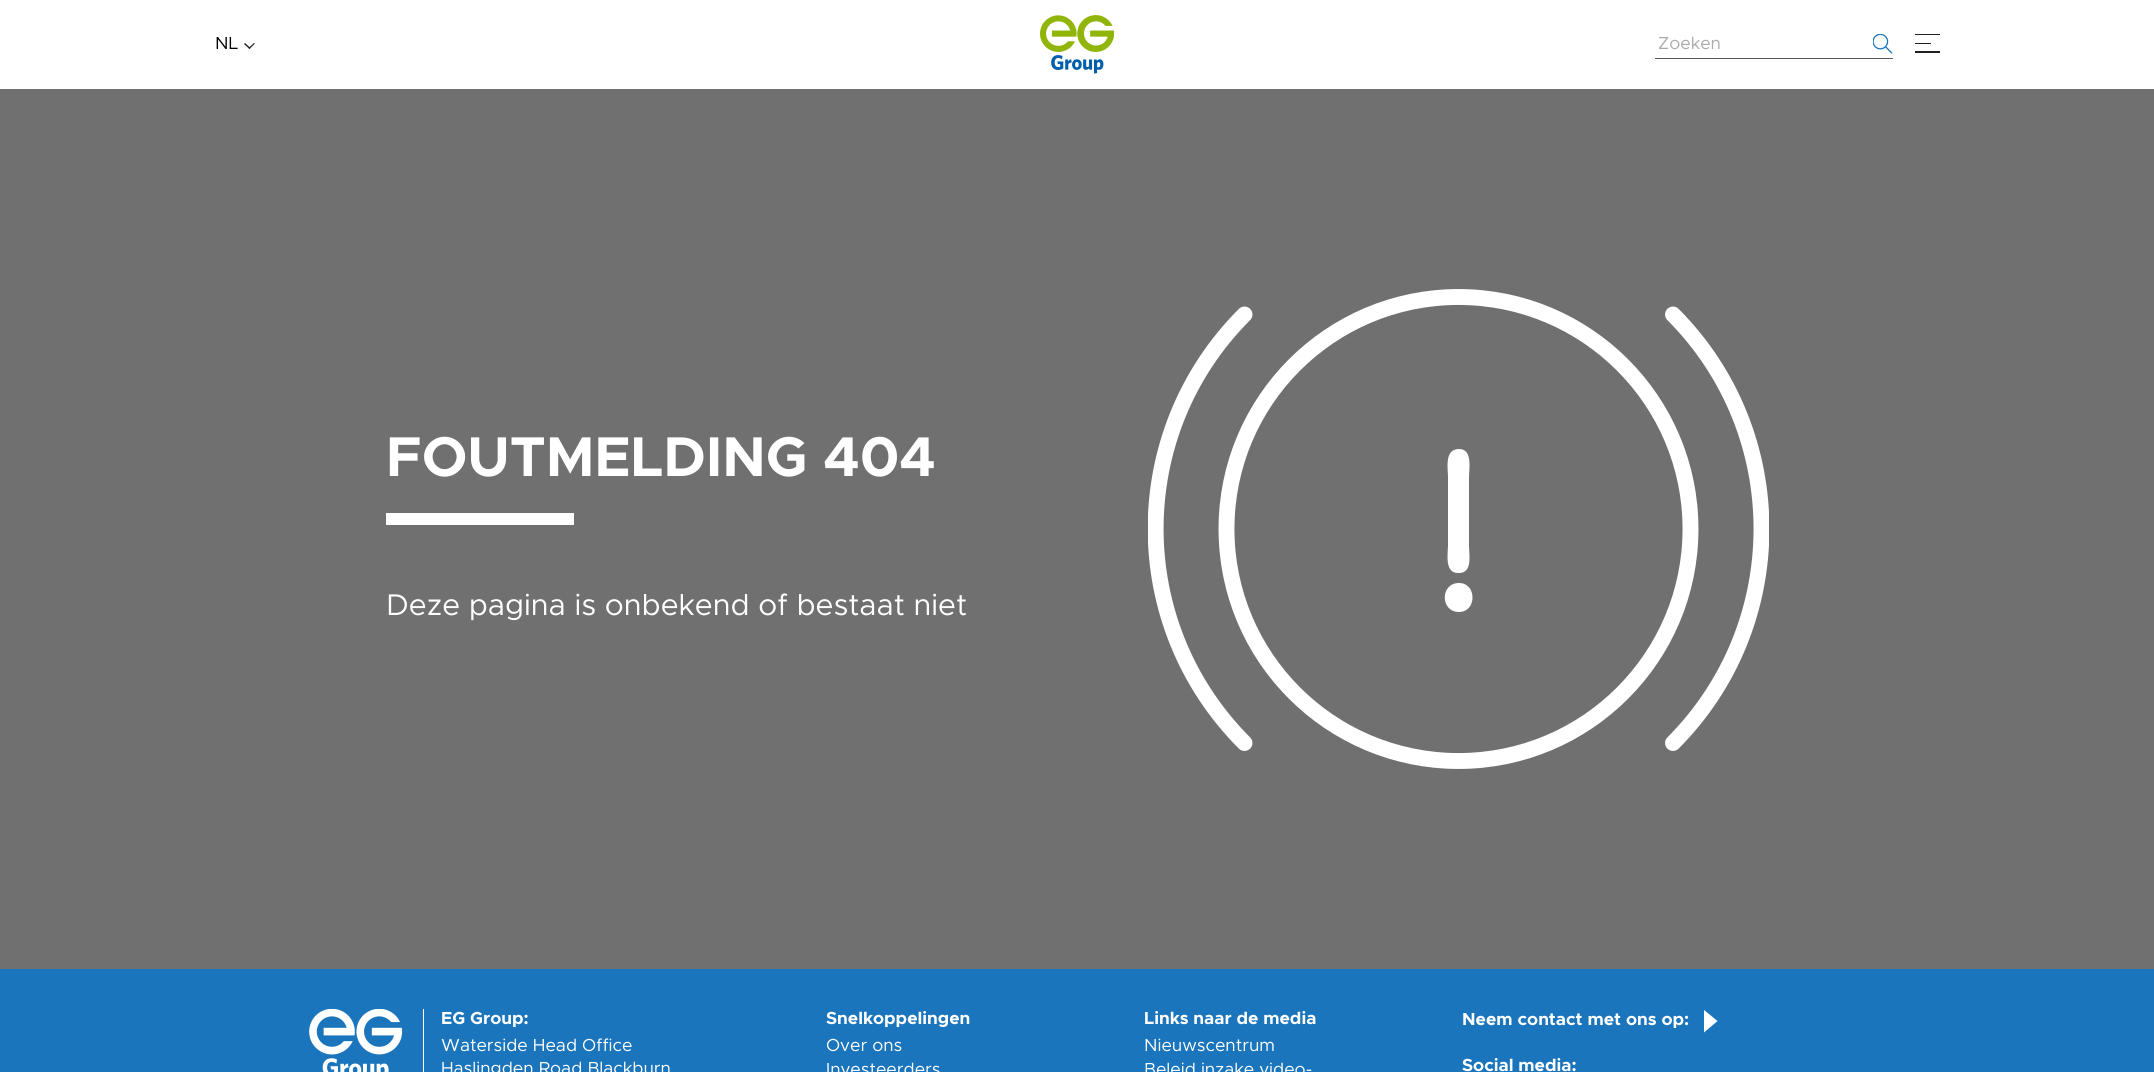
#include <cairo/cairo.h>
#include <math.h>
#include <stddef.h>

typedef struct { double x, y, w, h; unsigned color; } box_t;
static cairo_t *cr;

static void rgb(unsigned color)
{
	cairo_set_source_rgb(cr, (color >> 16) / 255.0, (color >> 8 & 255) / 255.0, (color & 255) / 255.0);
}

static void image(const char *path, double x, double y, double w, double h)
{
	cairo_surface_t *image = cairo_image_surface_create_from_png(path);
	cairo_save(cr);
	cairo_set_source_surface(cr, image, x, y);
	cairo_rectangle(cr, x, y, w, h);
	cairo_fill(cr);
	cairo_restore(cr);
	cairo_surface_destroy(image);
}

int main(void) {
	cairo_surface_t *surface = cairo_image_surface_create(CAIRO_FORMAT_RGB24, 2154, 1072);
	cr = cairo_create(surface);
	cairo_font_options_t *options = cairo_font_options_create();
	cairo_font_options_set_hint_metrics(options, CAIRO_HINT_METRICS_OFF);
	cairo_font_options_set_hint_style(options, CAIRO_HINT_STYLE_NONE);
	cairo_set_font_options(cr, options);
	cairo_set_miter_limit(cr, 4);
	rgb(0xffffff);
	cairo_paint(cr);
	rgb(0x212121);
	cairo_new_path(cr);
	cairo_move_to(cr, 254, 43);
	cairo_line_to(cr, 255, 43.5);
	cairo_line_to(cr, 249.5, 49);
	cairo_line_to(cr, 248.5, 48);
	cairo_close_path(cr);
	cairo_fill(cr);
	cairo_new_path(cr);
	cairo_move_to(cr, 245, 43);
	cairo_line_to(cr, 250.5, 48);
	cairo_line_to(cr, 249.5, 49);
	cairo_line_to(cr, 244, 44);
	cairo_close_path(cr);
	cairo_fill(cr);
	image("img/1.png", 1040, 15, 74, 59);
	rgb(0x575757);
	cairo_rectangle(cr, 1655, 58, 238, 1);
	cairo_fill(cr);
	image("img/2.png", 1873, 34, 20, 20);
	{
		static const box_t items[] = {
			{1915, 34, 25, 1, 0x212121},
			{1915, 51, 25, 2, 0x212121},
			{1915, 43, 16, 1, 0x212121},
			{0, 89, 2154, 880, 0x707070},
			{386, 513, 188, 12, 0xffffff},
		};
		for (size_t i = 0; i < sizeof items / sizeof *items; i++) {
			rgb(items[i].color);
			cairo_rectangle(cr, items[i].x, items[i].y, items[i].w, items[i].h);
			cairo_fill(cr);
		}
	}
	cairo_arc(cr, 1458.5, 529, 232, 0, 2 * M_PI);
	cairo_set_line_width(cr, 15.9);
	cairo_stroke(cr);
	cairo_save(cr);
	cairo_rectangle(cr, 1148, 289, 621, 480);
	cairo_clip(cr);
	cairo_new_path(cr);
	cairo_move_to(cr, 1244.5, 743);
	cairo_curve_to(cr, 1126, 624.5, 1126, 433, 1244.5, 314.5);
	cairo_set_line_cap(cr, CAIRO_LINE_CAP_ROUND);
	cairo_set_line_join(cr, CAIRO_LINE_JOIN_ROUND);
	cairo_stroke(cr);
	cairo_new_path(cr);
	cairo_move_to(cr, 1673, 314.5);
	cairo_curve_to(cr, 1791, 433, 1791, 624.5, 1673, 743);
	cairo_stroke(cr);
	cairo_restore(cr);
	cairo_new_path(cr);
	cairo_move_to(cr, 1459, 612);
	cairo_curve_to(cr, 1440, 612, 1440, 583, 1459, 583);
	cairo_curve_to(cr, 1477, 583, 1477, 612, 1459, 612);
	cairo_close_path(cr);
	cairo_move_to(cr, 1459, 573);
	cairo_curve_to(cr, 1444, 574, 1448, 553, 1448, 546);
	cairo_line_to(cr, 1448, 477);
	cairo_curve_to(cr, 1448, 469, 1444, 449, 1459, 449);
	cairo_curve_to(cr, 1473, 449, 1469, 469, 1469, 477);
	cairo_line_to(cr, 1469, 546);
	cairo_curve_to(cr, 1469, 554, 1473, 573, 1459, 573);
	cairo_close_path(cr);
	cairo_fill(cr);
	rgb(0x1b75bc);
	cairo_rectangle(cr, 0, 969, 2154, 103);
	cairo_fill(cr);
	image("img/3.png", 309, 1009, 94, 63);
	rgb(0xffffff);
	cairo_rectangle(cr, 423, 1009, 1, 63);
	cairo_fill(cr);
	cairo_new_path(cr);
	cairo_move_to(cr, 1704, 1032.5);
	cairo_line_to(cr, 1704, 1010);
	cairo_line_to(cr, 1717.5, 1021);
	cairo_close_path(cr);
	cairo_fill(cr);
	cairo_select_font_face(cr, "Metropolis", CAIRO_FONT_SLANT_NORMAL, CAIRO_FONT_WEIGHT_NORMAL);
	cairo_set_font_size(cr, 17.5);
	rgb(0x000000);
	cairo_move_to(cr, 215, 49);
	cairo_show_text(cr, "NL");
	rgb(0xaaaaaa);
	cairo_move_to(cr, 1658, 49);
	cairo_show_text(cr, "Zoeken");
	cairo_select_font_face(cr, "Metropolis", CAIRO_FONT_SLANT_NORMAL, CAIRO_FONT_WEIGHT_BOLD);
	cairo_set_font_size(cr, 56.25);
	rgb(0xffffff);
	cairo_move_to(cr, 386, 476);
	cairo_show_text(cr, "FOUTMELDING 404");
	cairo_select_font_face(cr, "Metropolis", CAIRO_FONT_SLANT_NORMAL, CAIRO_FONT_WEIGHT_NORMAL);
	cairo_set_font_size(cr, 30);
	cairo_move_to(cr, 386, 615);
	cairo_show_text(cr, "Deze pagina is onbekend of bestaat niet");
	cairo_select_font_face(cr, "Metropolis", CAIRO_FONT_SLANT_NORMAL, CAIRO_FONT_WEIGHT_BOLD);
	cairo_set_font_size(cr, 17.5);
	cairo_move_to(cr, 441, 1024);
	cairo_show_text(cr, "EG Group:");
	cairo_select_font_face(cr, "Metropolis", CAIRO_FONT_SLANT_NORMAL, CAIRO_FONT_WEIGHT_NORMAL);
	cairo_move_to(cr, 441, 1051);
	cairo_show_text(cr, "Waterside Head Office");
	cairo_move_to(cr, 441, 1074);
	cairo_show_text(cr, "Haslingden Road Blackburn");
	cairo_select_font_face(cr, "Metropolis", CAIRO_FONT_SLANT_NORMAL, CAIRO_FONT_WEIGHT_BOLD);
	cairo_move_to(cr, 826, 1024);
	cairo_show_text(cr, "Snelkoppelingen");
	cairo_select_font_face(cr, "Metropolis", CAIRO_FONT_SLANT_NORMAL, CAIRO_FONT_WEIGHT_NORMAL);
	cairo_move_to(cr, 826, 1051);
	cairo_show_text(cr, "Over ons");
	cairo_move_to(cr, 826, 1075);
	cairo_show_text(cr, "Investeerders");
	cairo_select_font_face(cr, "Metropolis", CAIRO_FONT_SLANT_NORMAL, CAIRO_FONT_WEIGHT_BOLD);
	cairo_move_to(cr, 1144, 1024);
	cairo_show_text(cr, "Links naar de media");
	cairo_select_font_face(cr, "Metropolis", CAIRO_FONT_SLANT_NORMAL, CAIRO_FONT_WEIGHT_NORMAL);
	cairo_move_to(cr, 1144, 1051);
	cairo_show_text(cr, "Nieuwscentrum");
	cairo_move_to(cr, 1144, 1075);
	cairo_show_text(cr, "Beleid inzake video-");
	cairo_select_font_face(cr, "Metropolis", CAIRO_FONT_SLANT_NORMAL, CAIRO_FONT_WEIGHT_BOLD);
	cairo_move_to(cr, 1462, 1025);
	cairo_show_text(cr, "Neem contact met ons op:");
	cairo_move_to(cr, 1462, 1071);
	cairo_show_text(cr, "Social media:");
	cairo_surface_write_to_png(surface, "page.png");
	cairo_font_options_destroy(options);
	cairo_destroy(cr);
	cairo_surface_destroy(surface);
	return 0;
}
